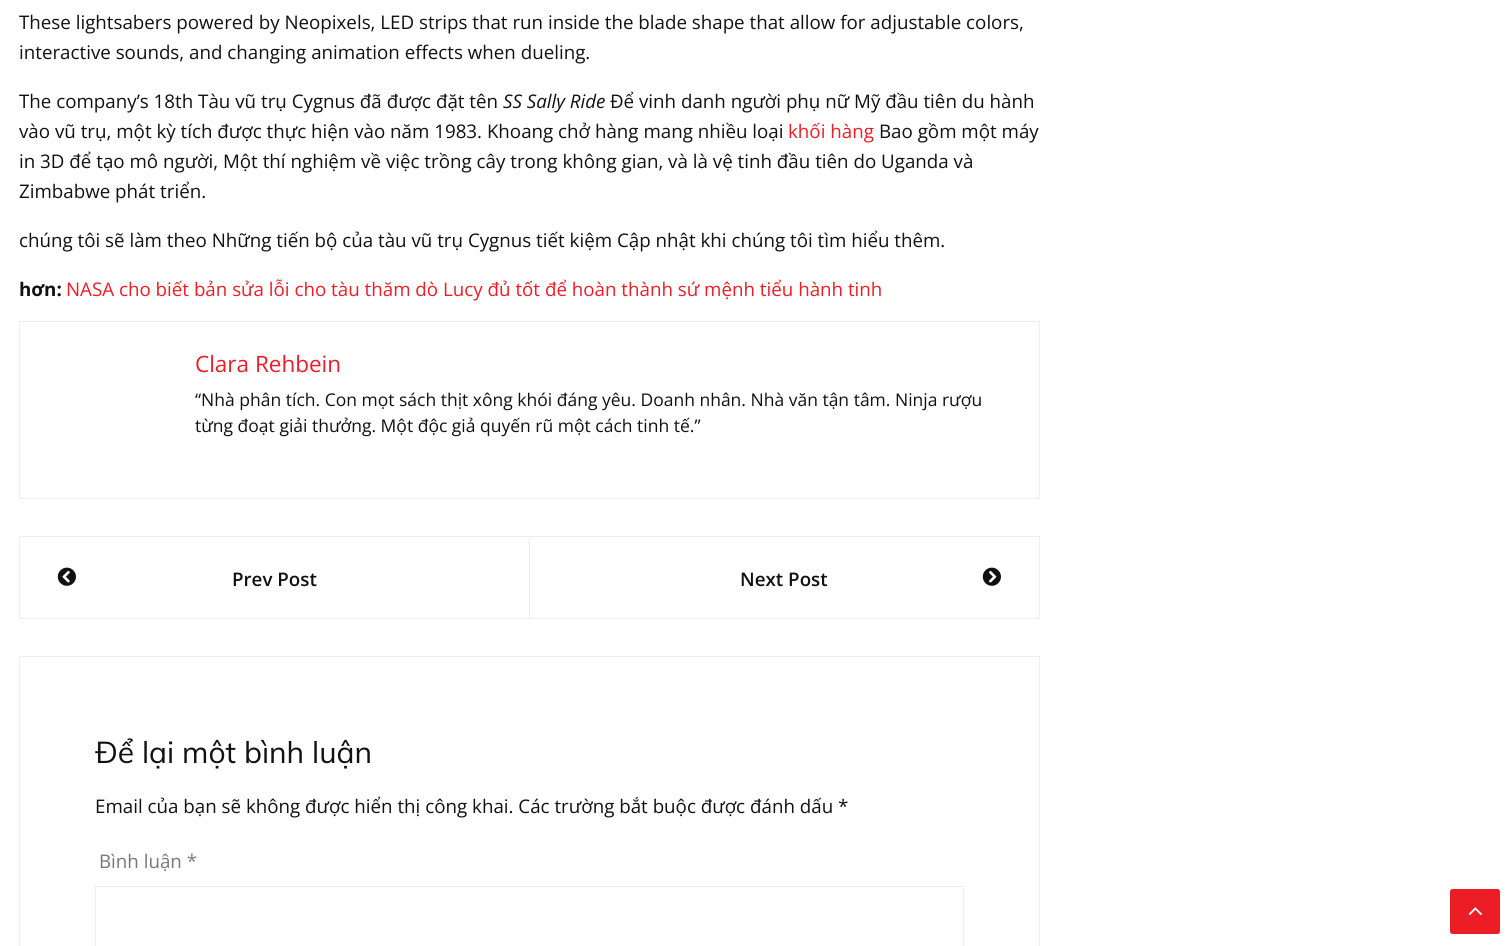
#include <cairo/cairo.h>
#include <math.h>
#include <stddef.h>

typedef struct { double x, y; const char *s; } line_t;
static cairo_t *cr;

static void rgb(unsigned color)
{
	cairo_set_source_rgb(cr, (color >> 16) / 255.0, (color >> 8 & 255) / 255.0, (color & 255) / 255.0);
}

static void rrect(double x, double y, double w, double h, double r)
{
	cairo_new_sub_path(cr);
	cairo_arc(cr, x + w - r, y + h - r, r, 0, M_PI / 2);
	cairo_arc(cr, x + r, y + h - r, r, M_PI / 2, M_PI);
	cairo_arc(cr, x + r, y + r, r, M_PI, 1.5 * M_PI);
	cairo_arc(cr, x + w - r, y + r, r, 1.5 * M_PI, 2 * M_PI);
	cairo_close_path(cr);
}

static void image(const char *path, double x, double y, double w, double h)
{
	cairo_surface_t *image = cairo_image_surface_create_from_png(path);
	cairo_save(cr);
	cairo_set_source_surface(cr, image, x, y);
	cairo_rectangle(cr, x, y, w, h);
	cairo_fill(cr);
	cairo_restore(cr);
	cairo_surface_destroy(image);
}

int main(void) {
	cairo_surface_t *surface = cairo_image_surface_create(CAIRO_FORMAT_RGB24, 1512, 946);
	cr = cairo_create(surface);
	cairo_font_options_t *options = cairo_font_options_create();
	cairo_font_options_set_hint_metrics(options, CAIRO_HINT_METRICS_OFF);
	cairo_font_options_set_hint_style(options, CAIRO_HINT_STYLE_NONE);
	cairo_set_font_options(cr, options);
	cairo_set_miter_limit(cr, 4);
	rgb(0xffffff);
	cairo_paint(cr);
	cairo_rectangle(cr, 19.5, 321.5, 1020, 177);
	rgb(0xeeeeee);
	cairo_set_line_width(cr, 1);
	cairo_stroke(cr);
	cairo_rectangle(cr, 19.5, 536.5, 1020, 82);
	cairo_stroke(cr);
	cairo_rectangle(cr, 529, 538, 1, 80);
	cairo_fill(cr);
	image("img/1.png", 57, 567, 19, 19);
	image("img/2.png", 982, 567, 19, 19);
	cairo_rectangle(cr, 19.5, 656.5, 1020, 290);
	cairo_stroke(cr);
	cairo_rectangle(cr, 95.5, 886.5, 868, 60);
	cairo_stroke(cr);
	rgb(0xed1d25);
	rrect(1450, 889, 50, 45, 2.5);
	cairo_fill(cr);
	image("img/3.png", 1468, 907, 14, 8);
	cairo_select_font_face(cr, "Open Sans", CAIRO_FONT_SLANT_NORMAL, CAIRO_FONT_WEIGHT_NORMAL);
	cairo_set_font_size(cr, 18.75);
	rgb(0x111111);
	{
		static const line_t items[] = {
			{19, 29, "These lightsabers powered by Neopixels, LED strips that run inside the blade shape that allow for adjustable colors,"},
			{19, 59, "interactive sounds, and changing animation effects when dueling."},
			{19, 108, "The company’s 18th Tàu vũ trụ Cygnus đã được đặt tên"},
		};
		for (size_t i = 0; i < sizeof items / sizeof *items; i++) {
			cairo_move_to(cr, items[i].x, items[i].y);
			cairo_show_text(cr, items[i].s);
		}
	}
	cairo_select_font_face(cr, "Open Sans", CAIRO_FONT_SLANT_ITALIC, CAIRO_FONT_WEIGHT_NORMAL);
	cairo_move_to(cr, 503, 108);
	cairo_show_text(cr, "SS Sally Ride");
	cairo_select_font_face(cr, "Open Sans", CAIRO_FONT_SLANT_NORMAL, CAIRO_FONT_WEIGHT_NORMAL);
	cairo_move_to(cr, 610, 108);
	cairo_show_text(cr, "Để vinh danh người phụ nữ Mỹ đầu tiên du hành");
	cairo_move_to(cr, 19, 138);
	cairo_show_text(cr, "vào vũ trụ, một kỳ tích được thực hiện vào năm 1983. Khoang chở hàng mang nhiều loại");
	rgb(0xed1d25);
	cairo_move_to(cr, 788, 138);
	cairo_show_text(cr, "khối hàng");
	rgb(0x111111);
	{
		static const line_t items[] = {
			{879, 138, "Bao gồm một máy"},
			{19, 168, "in 3D để tạo mô người, Một thí nghiệm về việc trồng cây trong không gian, và là vệ tinh đầu tiên do Uganda và"},
			{19, 198, "Zimbabwe phát triển."},
			{19, 247, "chúng tôi sẽ làm theo Những tiến bộ của tàu vũ trụ Cygnus tiết kiệm Cập nhật khi chúng tôi tìm hiểu thêm."},
		};
		for (size_t i = 0; i < sizeof items / sizeof *items; i++) {
			cairo_move_to(cr, items[i].x, items[i].y);
			cairo_show_text(cr, items[i].s);
		}
	}
	cairo_select_font_face(cr, "Open Sans", CAIRO_FONT_SLANT_NORMAL, CAIRO_FONT_WEIGHT_BOLD);
	cairo_move_to(cr, 19, 296);
	cairo_show_text(cr, "hơn:");
	cairo_select_font_face(cr, "Open Sans", CAIRO_FONT_SLANT_NORMAL, CAIRO_FONT_WEIGHT_NORMAL);
	rgb(0xed1d25);
	cairo_move_to(cr, 66, 296);
	cairo_show_text(cr, "NASA cho biết bản sửa lỗi cho tàu thăm dò Lucy đủ tốt để hoàn thành sứ mệnh tiểu hành tinh");
	cairo_set_font_size(cr, 22.5);
	cairo_move_to(cr, 195, 372);
	cairo_show_text(cr, "Clara Rehbein");
	cairo_set_font_size(cr, 17.5);
	rgb(0x111111);
	cairo_move_to(cr, 195, 406);
	cairo_show_text(cr, "“Nhà phân tích. Con mọt sách thịt xông khói đáng yêu. Doanh nhân. Nhà văn tận tâm. Ninja rượu");
	cairo_move_to(cr, 195, 432);
	cairo_show_text(cr, "từng đoạt giải thưởng. Một độc giả quyến rũ một cách tinh tế.”");
	cairo_select_font_face(cr, "Open Sans SemiBold", CAIRO_FONT_SLANT_NORMAL, CAIRO_FONT_WEIGHT_NORMAL);
	cairo_set_font_size(cr, 18.75);
	cairo_move_to(cr, 232, 586);
	cairo_show_text(cr, "Prev Post");
	cairo_move_to(cr, 740, 586);
	cairo_show_text(cr, "Next Post");
	cairo_select_font_face(cr, "Muli", CAIRO_FONT_SLANT_NORMAL, CAIRO_FONT_WEIGHT_NORMAL);
	cairo_set_font_size(cr, 30);
	cairo_move_to(cr, 95, 763);
	cairo_show_text(cr, "Để lại một bình luận");
	cairo_select_font_face(cr, "Open Sans", CAIRO_FONT_SLANT_NORMAL, CAIRO_FONT_WEIGHT_NORMAL);
	cairo_set_font_size(cr, 18.75);
	cairo_move_to(cr, 95, 813);
	cairo_show_text(cr, "Email của bạn sẽ không được hiển thị công khai. Các trường bắt buộc được đánh dấu *");
	rgb(0x777777);
	cairo_move_to(cr, 99, 868);
	cairo_show_text(cr, "Bình luận *");
	cairo_surface_write_to_png(surface, "page.png");
	cairo_font_options_destroy(options);
	cairo_destroy(cr);
	cairo_surface_destroy(surface);
	return 0;
}
